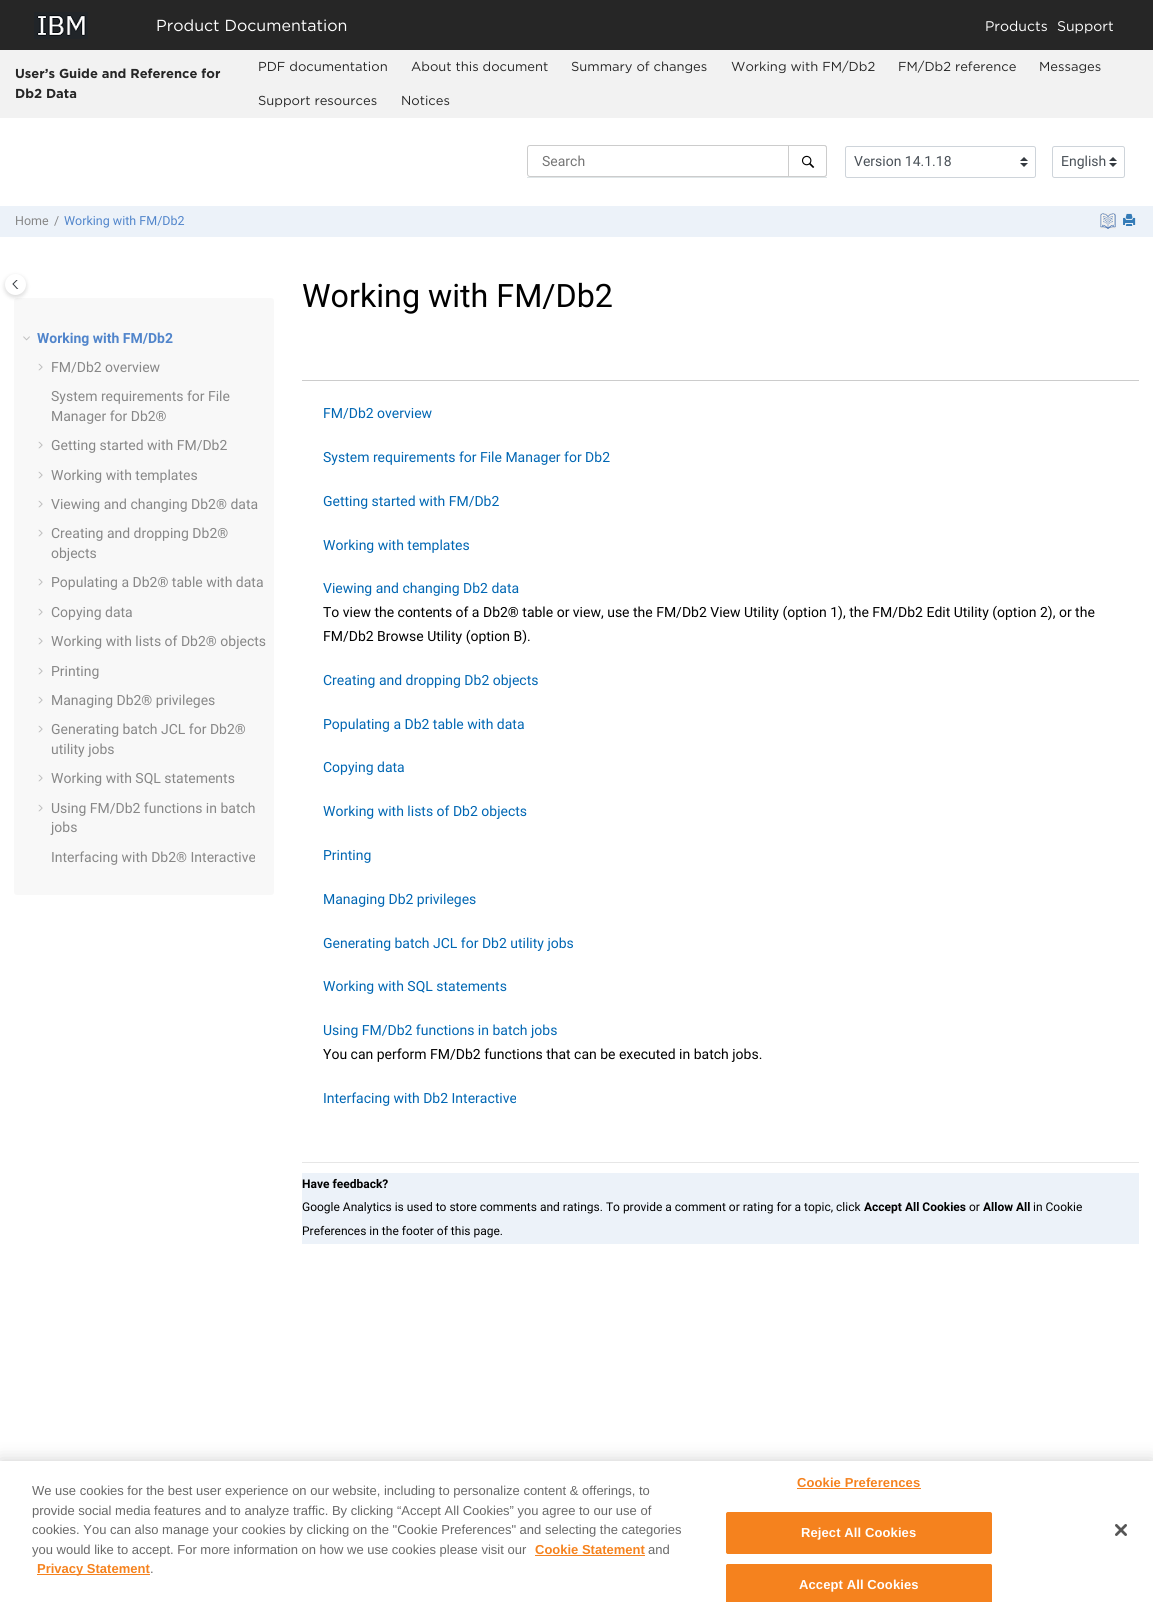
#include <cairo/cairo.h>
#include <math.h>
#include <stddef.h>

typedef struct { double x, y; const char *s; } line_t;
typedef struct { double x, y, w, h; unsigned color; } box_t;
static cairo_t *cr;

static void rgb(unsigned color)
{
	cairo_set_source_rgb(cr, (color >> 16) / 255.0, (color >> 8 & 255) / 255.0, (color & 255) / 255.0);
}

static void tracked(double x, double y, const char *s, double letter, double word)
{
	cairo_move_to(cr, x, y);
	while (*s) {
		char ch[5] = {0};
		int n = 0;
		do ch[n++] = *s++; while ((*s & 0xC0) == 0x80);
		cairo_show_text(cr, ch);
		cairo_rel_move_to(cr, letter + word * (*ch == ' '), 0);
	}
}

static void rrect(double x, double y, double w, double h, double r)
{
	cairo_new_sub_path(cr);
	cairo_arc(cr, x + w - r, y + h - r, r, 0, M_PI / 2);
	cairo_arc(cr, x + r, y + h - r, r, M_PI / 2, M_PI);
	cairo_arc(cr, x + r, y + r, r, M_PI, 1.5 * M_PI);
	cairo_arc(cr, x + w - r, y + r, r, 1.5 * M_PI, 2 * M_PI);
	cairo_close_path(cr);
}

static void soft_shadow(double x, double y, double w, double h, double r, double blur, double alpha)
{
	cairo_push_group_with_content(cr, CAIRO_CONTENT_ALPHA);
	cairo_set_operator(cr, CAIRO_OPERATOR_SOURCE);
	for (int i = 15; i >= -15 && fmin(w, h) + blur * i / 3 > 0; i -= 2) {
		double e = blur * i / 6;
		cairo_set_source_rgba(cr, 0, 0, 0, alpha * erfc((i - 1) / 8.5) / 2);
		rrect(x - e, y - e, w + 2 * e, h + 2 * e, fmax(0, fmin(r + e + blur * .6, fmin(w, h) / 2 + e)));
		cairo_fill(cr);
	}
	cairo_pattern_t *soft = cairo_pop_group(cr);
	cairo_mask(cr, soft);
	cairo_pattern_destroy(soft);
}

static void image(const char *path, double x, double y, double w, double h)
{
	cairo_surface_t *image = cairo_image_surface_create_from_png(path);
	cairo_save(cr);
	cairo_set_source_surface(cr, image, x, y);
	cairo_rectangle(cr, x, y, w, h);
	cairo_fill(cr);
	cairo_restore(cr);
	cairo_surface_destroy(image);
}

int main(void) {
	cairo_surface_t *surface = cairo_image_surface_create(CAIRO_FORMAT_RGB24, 1153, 1602);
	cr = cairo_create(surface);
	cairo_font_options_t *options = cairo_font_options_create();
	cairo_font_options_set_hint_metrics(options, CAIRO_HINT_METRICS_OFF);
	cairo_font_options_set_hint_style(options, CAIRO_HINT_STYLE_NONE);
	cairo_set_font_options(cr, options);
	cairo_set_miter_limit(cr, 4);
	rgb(0xffffff);
	cairo_paint(cr);
	rgb(0x262626);
	cairo_rectangle(cr, 0, 0, 1153, 50);
	cairo_fill(cr);
	image("img/1.png", 34, 12, 54, 27);
	rgb(0xf2f2f2);
	cairo_rectangle(cr, 0, 50, 1153, 68);
	cairo_fill(cr);
	rgb(0xdee5e7);
	cairo_rectangle(cr, 527, 177, 300, 1);
	cairo_fill(cr);
	rrect(527.5, 145.5, 299, 31, 2.5);
	rgb(0xcccccc);
	cairo_set_line_width(cr, 1);
	cairo_stroke(cr);
	rgb(0xffffff);
	cairo_new_path(cr);
	cairo_move_to(cr, 788.5, 145.5);
	cairo_line_to(cr, 824, 145.5);
	cairo_curve_to(cr, 825.5, 145.5, 826.5, 146.5, 826.5, 148);
	cairo_line_to(cr, 826.5, 174);
	cairo_curve_to(cr, 826.5, 175.5, 825.5, 176.5, 824, 176.5);
	cairo_line_to(cr, 788.5, 176.5);
	cairo_close_path(cr);
	cairo_fill_preserve(cr);
	rgb(0xcccccc);
	cairo_stroke(cr);
	image("img/2.png", 801, 155, 14, 13);
	image("img/3.png", 1020, 157, 8, 10);
	rrect(845.5, 146.5, 190, 31, 2);
	rgb(0xced4da);
	cairo_stroke(cr);
	image("img/3.png", 1109, 157, 8, 10);
	rrect(1052.5, 146.5, 72, 31, 2);
	cairo_stroke(cr);
	rgb(0xecf2f9);
	cairo_rectangle(cr, 0, 206, 1153, 31);
	cairo_fill(cr);
	image("img/4.png", 1100, 213, 16, 16);
	image("img/5.png", 1123, 213, 13, 13);
	rgb(0xf8f8f8);
	rrect(14, 298, 260, 597, 3);
	cairo_fill(cr);
	image("img/6.png", 23, 336, 7, 5);
	image("img/7.png", 38, 363, 5, 8);
	image("img/7.png", 38, 441, 5, 8);
	image("img/7.png", 38, 471, 5, 8);
	image("img/7.png", 38, 500, 5, 8);
	image("img/7.png", 38, 529, 5, 8);
	image("img/7.png", 38, 578, 5, 8);
	image("img/7.png", 38, 608, 5, 8);
	image("img/7.png", 38, 637, 5, 8);
	image("img/7.png", 38, 667, 5, 8);
	image("img/7.png", 38, 696, 5, 8);
	image("img/7.png", 38, 725, 5, 8);
	image("img/7.png", 38, 774, 5, 8);
	image("img/7.png", 38, 804, 5, 8);
	rgb(0x000000);
	soft_shadow(5, 276, 21, 21, 10.5, 2.5, 0.16);
	rgb(0xffffff);
	cairo_arc(cr, 15.5, 284.5, 10.5, 0, 2 * M_PI);
	cairo_fill(cr);
	cairo_save(cr);
	cairo_rectangle(cr, 12, 280, 7, 9);
	cairo_clip(cr);
	cairo_new_path(cr);
	cairo_move_to(cr, 18.5, 278.5);
	cairo_line_to(cr, 24, 284);
	cairo_line_to(cr, 18.5, 290);
	cairo_line_to(cr, 13, 284);
	cairo_close_path(cr);
	rgb(0x343a40);
	cairo_stroke(cr);
	cairo_restore(cr);
	{
		static const box_t items[] = {
			{302, 380, 837, 1, 0xcccccc},
			{302, 1162, 837, 1, 0xe6e6e6},
			{302, 1173, 837, 71, 0xecf2f9},
		};
		for (size_t i = 0; i < sizeof items / sizeof *items; i++) {
			rgb(items[i].color);
			cairo_rectangle(cr, items[i].x, items[i].y, items[i].w, items[i].h);
			cairo_fill(cr);
		}
	}
	rgb(0x000000);
	soft_shadow(0, 1461, 1153, 141, 0, 9, 0.2);
	{
		static const box_t items[] = {
			{0, 1461, 1153, 141, 0xffffff},
			{535, 1555, 110, 1, 0xf5821e},
			{37, 1574, 113, 1, 0xf5821e},
			{797, 1488, 124, 1, 0xf5821e},
		};
		for (size_t i = 0; i < sizeof items / sizeof *items; i++) {
			rgb(items[i].color);
			cairo_rectangle(cr, items[i].x, items[i].y, items[i].w, items[i].h);
			cairo_fill(cr);
		}
	}
	rrect(726.5, 1512.5, 265, 41, 1.5);
	cairo_fill_preserve(cr);
	cairo_stroke(cr);
	cairo_new_path(cr);
	cairo_move_to(cr, 728, 1564);
	cairo_line_to(cr, 990, 1564);
	cairo_curve_to(cr, 991, 1564, 992, 1565, 992, 1566);
	cairo_line_to(cr, 992, 1602);
	cairo_line_to(cr, 726, 1602);
	cairo_line_to(cr, 726, 1566);
	cairo_curve_to(cr, 726, 1565, 727, 1564, 728, 1564);
	cairo_close_path(cr);
	cairo_fill(cr);
	rrect(726.5, 1564.5, 265, 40, 1.5);
	cairo_stroke(cr);
	image("img/8.png", 1115, 1524, 12, 12);
	cairo_select_font_face(cr, "Gotham", CAIRO_FONT_SLANT_NORMAL, CAIRO_FONT_WEIGHT_NORMAL);
	cairo_set_font_size(cr, 16);
	rgb(0xffffff);
	cairo_move_to(cr, 156, 31);
	cairo_show_text(cr, "Product Documentation");
	cairo_set_font_size(cr, 14);
	cairo_move_to(cr, 985, 31);
	cairo_show_text(cr, "Products");
	cairo_move_to(cr, 1057, 31);
	cairo_show_text(cr, "Support");
	cairo_select_font_face(cr, "Gotham", CAIRO_FONT_SLANT_NORMAL, CAIRO_FONT_WEIGHT_BOLD);
	cairo_set_font_size(cr, 13);
	rgb(0x262626);
	cairo_move_to(cr, 15, 78);
	cairo_show_text(cr, "User’s Guide and Reference for");
	cairo_move_to(cr, 15, 98);
	cairo_show_text(cr, "Db2 Data");
	cairo_select_font_face(cr, "Gotham", CAIRO_FONT_SLANT_NORMAL, CAIRO_FONT_WEIGHT_NORMAL);
	{
		static const line_t items[] = {
			{258, 71, "PDF documentation"},
			{411, 71, "About this document"},
			{571, 71, "Summary of changes"},
			{731, 71, "Working with FM/Db2"},
			{898, 71, "FM/Db2 reference"},
			{1039, 71, "Messages"},
			{258, 105, "Support resources"},
			{401, 105, "Notices"},
		};
		for (size_t i = 0; i < sizeof items / sizeof *items; i++) {
			cairo_move_to(cr, items[i].x, items[i].y);
			cairo_show_text(cr, items[i].s);
		}
	}
	cairo_select_font_face(cr, "Roboto", CAIRO_FONT_SLANT_NORMAL, CAIRO_FONT_WEIGHT_NORMAL);
	cairo_set_font_size(cr, 14);
	rgb(0x757575);
	cairo_move_to(cr, 542, 166);
	cairo_show_text(cr, "Search");
	rgb(0x495057);
	cairo_move_to(cr, 854, 166);
	cairo_show_text(cr, "Version 14.1.18");
	cairo_move_to(cr, 1061, 166);
	cairo_show_text(cr, "English");
	cairo_set_font_size(cr, 12.5);
	rgb(0x878787);
	cairo_move_to(cr, 15, 225);
	cairo_show_text(cr, "Home");
	cairo_move_to(cr, 54, 225);
	cairo_show_text(cr, "/");
	rgb(0x5185cb);
	cairo_move_to(cr, 64, 225);
	cairo_show_text(cr, "Working with FM/Db2");
	cairo_select_font_face(cr, "Roboto", CAIRO_FONT_SLANT_NORMAL, CAIRO_FONT_WEIGHT_BOLD);
	cairo_set_font_size(cr, 14);
	cairo_move_to(cr, 37, 343);
	cairo_show_text(cr, "Working with FM/Db2");
	cairo_select_font_face(cr, "Roboto", CAIRO_FONT_SLANT_NORMAL, CAIRO_FONT_WEIGHT_NORMAL);
	rgb(0x878787);
	{
		static const line_t items[] = {
			{51, 372, "FM/Db2 overview"},
			{51, 401, "System requirements for File"},
			{51, 421, "Manager for Db2®"},
			{51, 450, "Getting started with FM/Db2"},
			{51, 480, "Working with templates"},
			{51, 509, "Viewing and changing Db2® data"},
			{51, 538, "Creating and dropping Db2®"},
			{51, 558, "objects"},
			{51, 587, "Populating a Db2® table with data"},
			{51, 617, "Copying data"},
			{51, 646, "Working with lists of Db2® objects"},
			{51, 676, "Printing"},
			{51, 705, "Managing Db2® privileges"},
			{51, 734, "Generating batch JCL for Db2®"},
			{51, 754, "utility jobs"},
			{51, 783, "Working with SQL statements"},
			{51, 813, "Using FM/Db2 functions in batch"},
			{51, 832, "jobs"},
			{51, 862, "Interfacing with Db2® Interactive"},
		};
		for (size_t i = 0; i < sizeof items / sizeof *items; i++) {
			cairo_move_to(cr, items[i].x, items[i].y);
			cairo_show_text(cr, items[i].s);
		}
	}
	cairo_set_font_size(cr, 32.25);
	rgb(0x000000);
	cairo_move_to(cr, 302, 307);
	cairo_show_text(cr, "Working with FM/Db2");
	cairo_set_font_size(cr, 14);
	rgb(0x0066b3);
	{
		static const line_t items[] = {
			{323, 418, "FM/Db2 overview"},
			{323, 462, "System requirements for File Manager for Db2"},
			{323, 506, "Getting started with FM/Db2"},
			{323, 550, "Working with templates"},
			{323, 593, "Viewing and changing Db2 data"},
		};
		for (size_t i = 0; i < sizeof items / sizeof *items; i++) {
			cairo_move_to(cr, items[i].x, items[i].y);
			cairo_show_text(cr, items[i].s);
		}
	}
	rgb(0x000000);
	cairo_move_to(cr, 323, 617);
	cairo_show_text(cr, "To view the contents of a Db2® table or view, use the FM/Db2 View Utility (option 1), the FM/Db2 Edit Utility (option 2), or the");
	cairo_move_to(cr, 323, 641);
	cairo_show_text(cr, "FM/Db2 Browse Utility (option B).");
	rgb(0x0066b3);
	{
		static const line_t items[] = {
			{323, 685, "Creating and dropping Db2 objects"},
			{323, 729, "Populating a Db2 table with data"},
			{323, 772, "Copying data"},
			{323, 816, "Working with lists of Db2 objects"},
			{323, 860, "Printing"},
			{323, 904, "Managing Db2 privileges"},
			{323, 948, "Generating batch JCL for Db2 utility jobs"},
			{323, 991, "Working with SQL statements"},
			{323, 1035, "Using FM/Db2 functions in batch jobs"},
		};
		for (size_t i = 0; i < sizeof items / sizeof *items; i++) {
			cairo_move_to(cr, items[i].x, items[i].y);
			cairo_show_text(cr, items[i].s);
		}
	}
	rgb(0x000000);
	cairo_move_to(cr, 323, 1059);
	cairo_show_text(cr, "You can perform FM/Db2 functions that can be executed in batch jobs.");
	rgb(0x0066b3);
	cairo_move_to(cr, 323, 1103);
	cairo_show_text(cr, "Interfacing with Db2 Interactive");
	cairo_select_font_face(cr, "Roboto", CAIRO_FONT_SLANT_NORMAL, CAIRO_FONT_WEIGHT_BOLD);
	cairo_set_font_size(cr, 12);
	rgb(0x000000);
	cairo_move_to(cr, 302, 1188);
	cairo_show_text(cr, "Have feedback?");
	cairo_select_font_face(cr, "Roboto", CAIRO_FONT_SLANT_NORMAL, CAIRO_FONT_WEIGHT_NORMAL);
	cairo_move_to(cr, 302, 1211);
	cairo_show_text(cr, "Google Analytics is used to store comments and ratings. To provide a comment or rating for a topic, click");
	cairo_select_font_face(cr, "Roboto", CAIRO_FONT_SLANT_NORMAL, CAIRO_FONT_WEIGHT_BOLD);
	cairo_move_to(cr, 864, 1211);
	cairo_show_text(cr, "Accept All Cookies");
	cairo_select_font_face(cr, "Roboto", CAIRO_FONT_SLANT_NORMAL, CAIRO_FONT_WEIGHT_NORMAL);
	cairo_move_to(cr, 969, 1211);
	cairo_show_text(cr, "or");
	cairo_select_font_face(cr, "Roboto", CAIRO_FONT_SLANT_NORMAL, CAIRO_FONT_WEIGHT_BOLD);
	cairo_move_to(cr, 983, 1211);
	cairo_show_text(cr, "Allow All");
	cairo_select_font_face(cr, "Roboto", CAIRO_FONT_SLANT_NORMAL, CAIRO_FONT_WEIGHT_NORMAL);
	cairo_move_to(cr, 1033, 1211);
	cairo_show_text(cr, "in Cookie");
	cairo_move_to(cr, 302, 1235);
	cairo_show_text(cr, "Preferences in the footer of this page.");
	cairo_select_font_face(cr, "Liberation Sans", CAIRO_FONT_SLANT_NORMAL, CAIRO_FONT_WEIGHT_NORMAL);
	cairo_set_font_size(cr, 13);
	rgb(0x696969);
	{
		static const line_t items[] = {
			{32, 1495, "We use cookies for the best user experience on our website, including to personalize content & offerings, to"},
			{32, 1515, "provide social media features and to analyze traffic. By clicking “Accept All Cookies” you agree to our use of"},
			{32, 1534, "cookies. You can also manage your cookies by clicking on the \"Cookie Preferences\" and selecting the categories"},
			{32, 1554, "you would like to accept. For more information on how we use cookies please visit our"},
		};
		for (size_t i = 0; i < sizeof items / sizeof *items; i++) {
			cairo_move_to(cr, items[i].x, items[i].y);
			cairo_show_text(cr, items[i].s);
		}
	}
	cairo_select_font_face(cr, "Liberation Sans", CAIRO_FONT_SLANT_NORMAL, CAIRO_FONT_WEIGHT_BOLD);
	rgb(0xf5821e);
	cairo_move_to(cr, 535, 1554);
	cairo_show_text(cr, "Cookie Statement");
	cairo_select_font_face(cr, "Liberation Sans", CAIRO_FONT_SLANT_NORMAL, CAIRO_FONT_WEIGHT_NORMAL);
	rgb(0x696969);
	cairo_move_to(cr, 648, 1554);
	cairo_show_text(cr, "and");
	cairo_select_font_face(cr, "Liberation Sans", CAIRO_FONT_SLANT_NORMAL, CAIRO_FONT_WEIGHT_BOLD);
	rgb(0xf5821e);
	cairo_move_to(cr, 37, 1573);
	cairo_show_text(cr, "Privacy Statement");
	cairo_select_font_face(cr, "Liberation Sans", CAIRO_FONT_SLANT_NORMAL, CAIRO_FONT_WEIGHT_NORMAL);
	rgb(0x696969);
	cairo_move_to(cr, 150, 1573);
	cairo_show_text(cr, ".");
	cairo_select_font_face(cr, "Liberation Sans", CAIRO_FONT_SLANT_NORMAL, CAIRO_FONT_WEIGHT_BOLD);
	rgb(0xf5821e);
	tracked(797, 1487, "Cookie Preferences", 0.1, 0);
	rgb(0xffffff);
	tracked(801, 1537, "Reject All Cookies", 0.1, 0);
	tracked(799, 1589, "Accept All Cookies", 0.1, 0);
	cairo_surface_write_to_png(surface, "page.png");
	cairo_font_options_destroy(options);
	cairo_destroy(cr);
	cairo_surface_destroy(surface);
	return 0;
}
